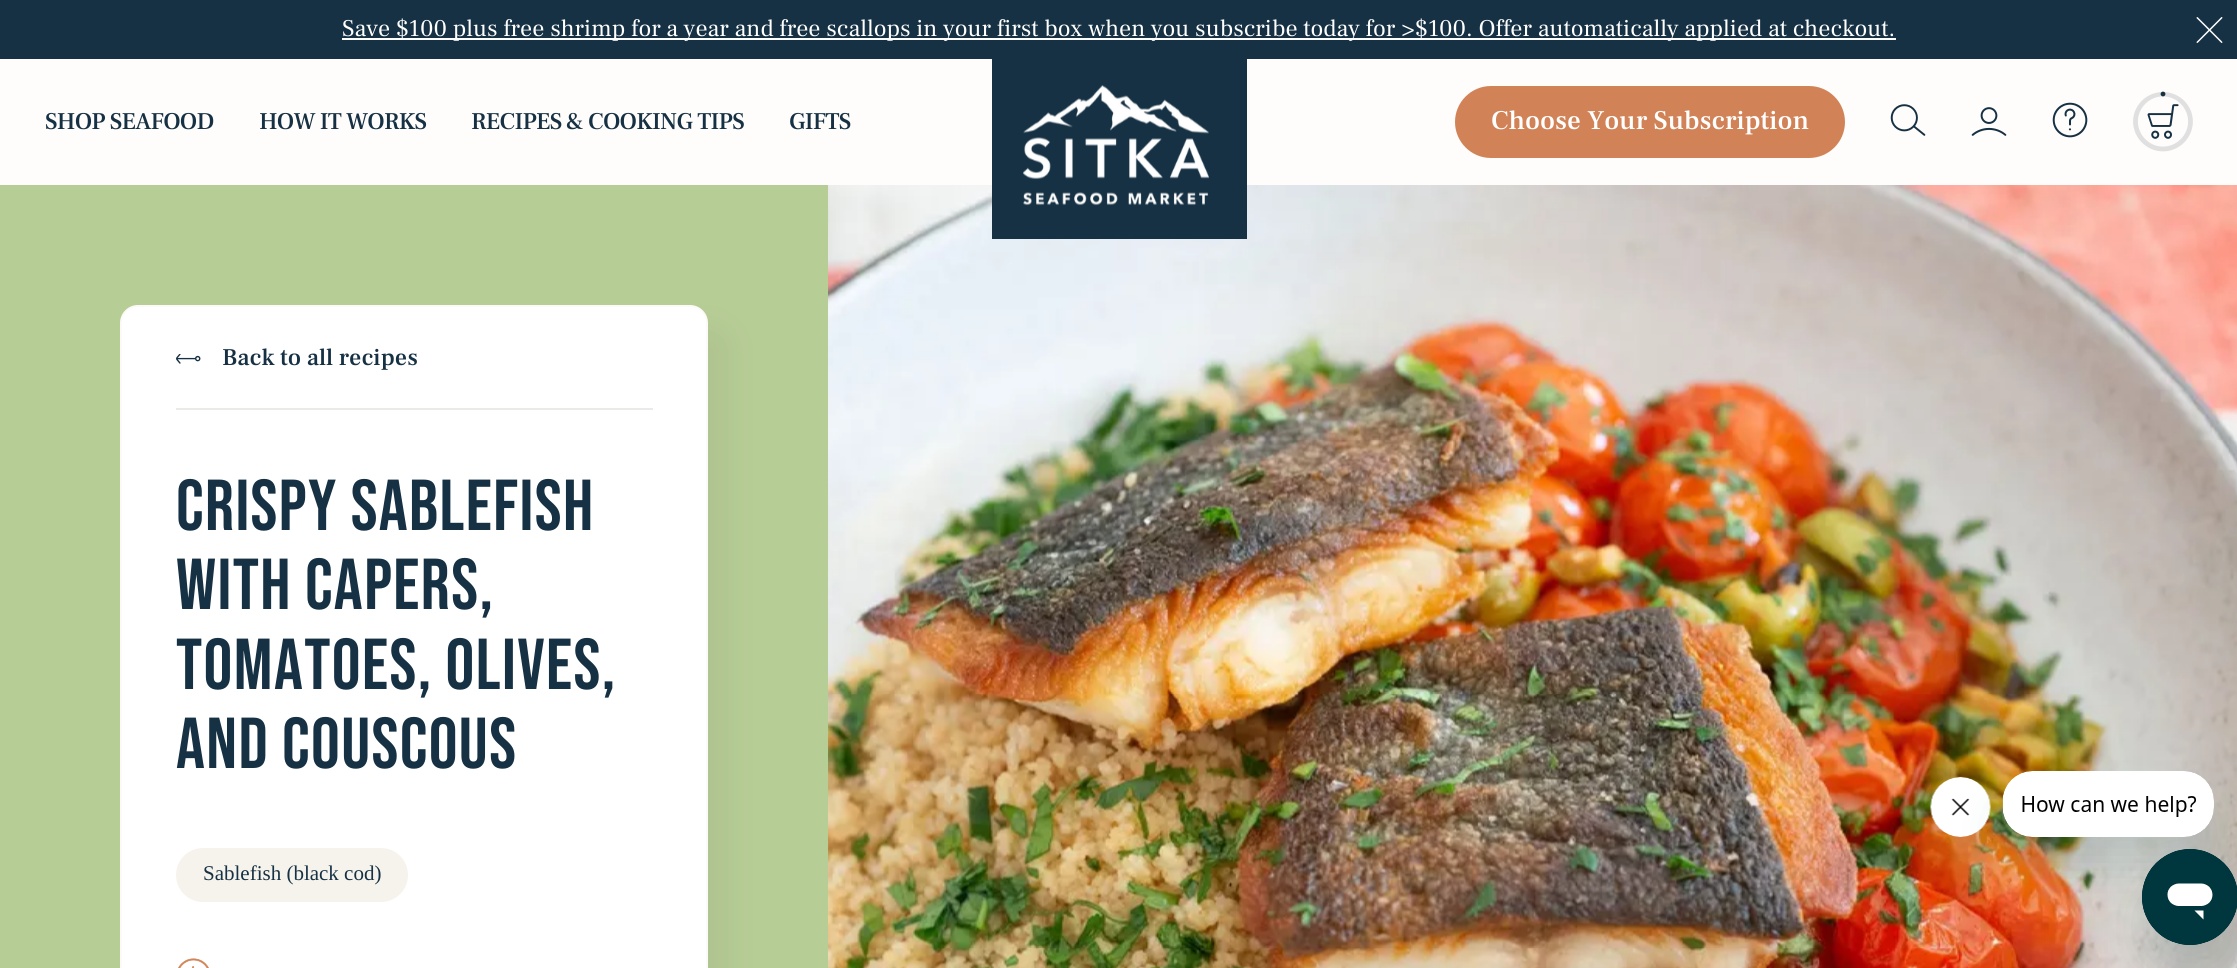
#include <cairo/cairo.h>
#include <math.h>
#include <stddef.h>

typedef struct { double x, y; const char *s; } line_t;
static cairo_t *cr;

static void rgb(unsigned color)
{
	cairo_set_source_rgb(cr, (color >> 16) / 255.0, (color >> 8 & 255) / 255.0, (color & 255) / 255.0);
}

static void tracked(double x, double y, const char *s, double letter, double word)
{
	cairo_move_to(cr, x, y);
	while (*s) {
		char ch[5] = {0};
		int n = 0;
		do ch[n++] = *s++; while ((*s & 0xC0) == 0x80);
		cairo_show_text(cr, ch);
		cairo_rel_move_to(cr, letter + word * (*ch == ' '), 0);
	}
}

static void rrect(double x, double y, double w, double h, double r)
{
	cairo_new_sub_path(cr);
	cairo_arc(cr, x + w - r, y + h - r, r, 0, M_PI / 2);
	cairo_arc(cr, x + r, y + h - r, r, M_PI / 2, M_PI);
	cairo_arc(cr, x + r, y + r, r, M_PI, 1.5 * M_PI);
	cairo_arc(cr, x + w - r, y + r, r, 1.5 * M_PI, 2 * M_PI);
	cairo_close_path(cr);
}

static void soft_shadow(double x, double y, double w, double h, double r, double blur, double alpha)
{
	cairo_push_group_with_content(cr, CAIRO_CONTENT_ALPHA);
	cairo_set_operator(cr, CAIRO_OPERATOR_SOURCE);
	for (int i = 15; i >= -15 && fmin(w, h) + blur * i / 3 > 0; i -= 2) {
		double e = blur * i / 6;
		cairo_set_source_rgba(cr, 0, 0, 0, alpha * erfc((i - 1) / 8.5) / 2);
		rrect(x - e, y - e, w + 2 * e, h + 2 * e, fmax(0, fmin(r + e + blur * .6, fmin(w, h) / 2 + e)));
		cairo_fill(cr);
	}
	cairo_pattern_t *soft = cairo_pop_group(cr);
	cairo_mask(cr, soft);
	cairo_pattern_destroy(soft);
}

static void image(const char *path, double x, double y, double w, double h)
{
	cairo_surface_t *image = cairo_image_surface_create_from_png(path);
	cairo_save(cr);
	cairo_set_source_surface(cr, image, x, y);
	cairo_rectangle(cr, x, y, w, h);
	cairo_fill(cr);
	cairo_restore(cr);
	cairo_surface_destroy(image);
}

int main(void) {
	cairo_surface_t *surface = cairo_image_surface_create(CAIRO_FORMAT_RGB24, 2237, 968);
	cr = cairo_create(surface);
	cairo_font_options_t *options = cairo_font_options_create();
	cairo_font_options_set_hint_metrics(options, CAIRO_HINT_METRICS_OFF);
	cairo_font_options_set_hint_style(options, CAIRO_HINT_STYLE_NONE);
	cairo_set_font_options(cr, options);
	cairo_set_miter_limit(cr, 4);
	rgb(0xfffdfc);
	cairo_paint(cr);
	rgb(0x163144);
	cairo_rectangle(cr, 0, 0, 2237, 59);
	cairo_fill(cr);
	rgb(0xffffff);
	cairo_rectangle(cr, 342, 38, 1554, 2);
	cairo_fill(cr);
	image("img/1.png", 2196, 17, 27, 26);
	image("img/9.png", 828, 185, 1409, 783);
	rgb(0x163144);
	cairo_rectangle(cr, 992, 59, 255, 180);
	cairo_fill(cr);
	image("img/2.png", 1023, 85, 186, 121);
	rgb(0xd18357);
	rrect(1455, 86, 390, 72, 36);
	cairo_fill(cr);
	image("img/3.png", 1890, 104, 36, 32);
	image("img/4.png", 1971, 107, 36, 29);
	image("img/5.png", 2052, 102, 36, 36);
	cairo_save(cr);
	rrect(2133, 92, 60, 60, 30);
	cairo_clip(cr);
	cairo_new_path(cr);
	cairo_move_to(cr, 2163, 94);
	cairo_curve_to(cr, 2178, 94, 2190.5, 106.5, 2190.5, 121.5);
	cairo_curve_to(cr, 2190.5, 136.5, 2178, 149, 2163, 149);
	cairo_curve_to(cr, 2148, 149, 2135.5, 136.5, 2135.5, 121.5);
	cairo_curve_to(cr, 2135.5, 106.5, 2148, 94, 2163, 94);
	rgb(0xe0e0e0);
	cairo_set_line_width(cr, 4.8);
	cairo_set_line_cap(cr, CAIRO_LINE_CAP_ROUND);
	cairo_set_dash(cr, (double[]){173.42, 173.42}, 2, 0);
	cairo_stroke(cr);
	cairo_restore(cr);
	cairo_new_path(cr);
	cairo_move_to(cr, 2163, 94);
	cairo_curve_to(cr, 2178, 94, 2190.5, 106.5, 2190.5, 121.5);
	cairo_curve_to(cr, 2190.5, 136.5, 2178, 149, 2163, 149);
	cairo_curve_to(cr, 2148, 149, 2135.5, 136.5, 2135.5, 121.5);
	cairo_curve_to(cr, 2135.5, 106.5, 2148, 94, 2163, 94);
	rgb(0x163144);
	cairo_set_line_width(cr, 4.8);
	cairo_set_line_cap(cr, CAIRO_LINE_CAP_ROUND);
	cairo_set_dash(cr, (double[]){173.42, 173.42}, 2, 173.4);
	cairo_stroke(cr);
	image("img/6.png", 2147, 104, 32, 35);
	rgb(0xb7cd96);
	cairo_rectangle(cr, 0, 185, 828, 783);
	cairo_fill(cr);
	rgb(0x000000);
	soft_shadow(143, 327, 588, 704, 18, 15, 0.05);
	rgb(0xffffff);
	rrect(121, 306, 586, 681, 17);
	cairo_fill_preserve(cr);
	rgb(0xfcfaf8);
	cairo_set_line_width(cr, 2);
	cairo_set_line_cap(cr, CAIRO_LINE_CAP_BUTT);
	cairo_set_dash(cr, NULL, 0, 0);
	cairo_stroke(cr);
	rgb(0xeaeae9);
	cairo_rectangle(cr, 176, 408, 477, 2);
	cairo_fill(cr);
	image("img/7.png", 176, 354, 25, 10);
	rgb(0xf6f3ed);
	rrect(176, 848, 232, 54, 27);
	cairo_fill(cr);
	image("img/8.png", 178, 958, 31, 10);
	rgb(0x17494d);
	soft_shadow(1931, 807, 60, 60, 30, 22.5, 0.15);
	image("img/11.png", 1930, 777, 61, 60);
	soft_shadow(2003, 801, 211, 66, 30, 22.5, 0.15);
	image("img/10.png", 2002, 771, 212, 66);
	soft_shadow(2142, 879, 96, 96, 48, 22.5, 0.15);
	image("img/12.png", 2142, 849, 95, 96);
	cairo_select_font_face(cr, "Frank Ruhl Libre", CAIRO_FONT_SLANT_NORMAL, CAIRO_FONT_WEIGHT_NORMAL);
	cairo_set_font_size(cr, 24);
	rgb(0xffffff);
	cairo_move_to(cr, 342, 36);
	cairo_show_text(cr, "Save $100 plus free shrimp for a year and free scallops in your first box when you subscribe today for >$100. Offer automatically applied at checkout.");
	cairo_select_font_face(cr, "Frank Ruhl Libre Medium", CAIRO_FONT_SLANT_NORMAL, CAIRO_FONT_WEIGHT_NORMAL);
	rgb(0x163144);
	{
		static const line_t items[] = {
			{45, 129, "SHOP SEAFOOD"},
			{259, 129, "HOW IT WORKS"},
			{471, 129, "RECIPES & COOKING TIPS"},
			{789, 129, "GIFTS"},
		};
		for (size_t i = 0; i < sizeof items / sizeof *items; i++) {
			tracked(items[i].x, items[i].y, items[i].s, -0.75, 0);
		}
	}
	cairo_set_font_size(cr, 27);
	rgb(0xffffff);
	cairo_move_to(cr, 1491, 129);
	cairo_show_text(cr, "Choose Your Subscription");
	cairo_set_font_size(cr, 24);
	rgb(0x163144);
	cairo_move_to(cr, 222, 365);
	cairo_show_text(cr, "Back to all recipes");
	cairo_select_font_face(cr, "Bebas Neue", CAIRO_FONT_SLANT_NORMAL, CAIRO_FONT_WEIGHT_NORMAL);
	cairo_set_font_size(cr, 72);
	{
		static const line_t items[] = {
			{176, 530, "Crispy Sablefish"},
			{176, 609, "With Capers,"},
			{176, 689, "Tomatoes, Olives,"},
			{176, 768, "and Couscous"},
		};
		for (size_t i = 0; i < sizeof items / sizeof *items; i++) {
			tracked(items[i].x, items[i].y, items[i].s, 1.4, 0);
		}
	}
	cairo_select_font_face(cr, "Liberation Serif", CAIRO_FONT_SLANT_NORMAL, CAIRO_FONT_WEIGHT_NORMAL);
	cairo_set_font_size(cr, 21);
	cairo_move_to(cr, 203, 880);
	cairo_show_text(cr, "Sablefish (black cod)");
	cairo_surface_write_to_png(surface, "page.png");
	cairo_font_options_destroy(options);
	cairo_destroy(cr);
	cairo_surface_destroy(surface);
	return 0;
}
